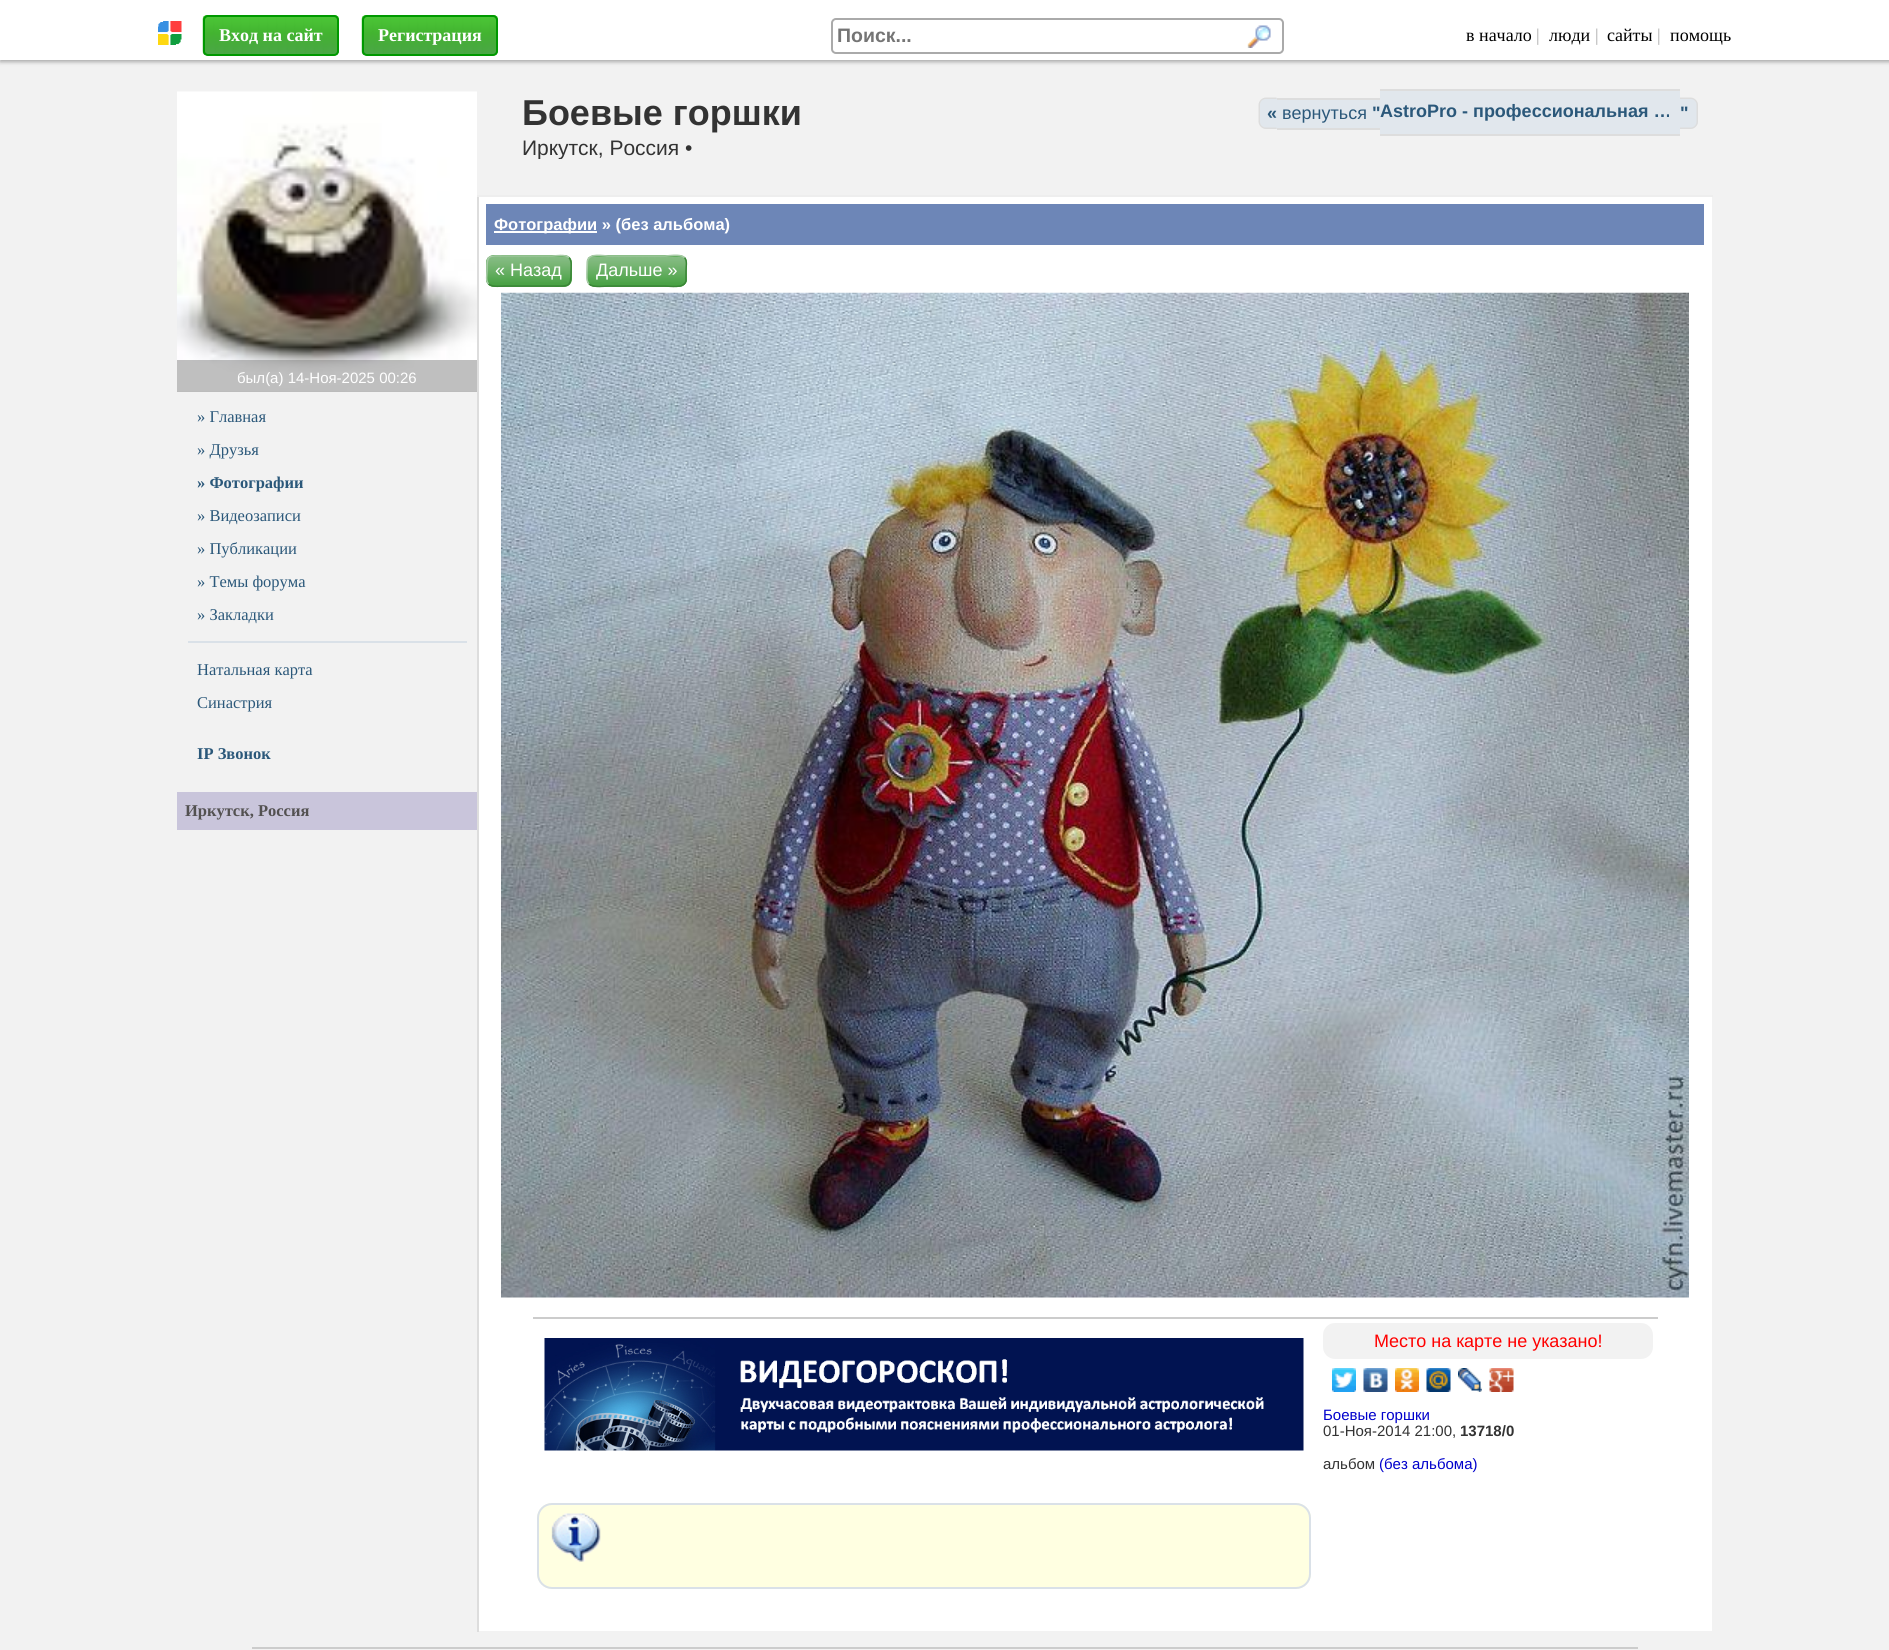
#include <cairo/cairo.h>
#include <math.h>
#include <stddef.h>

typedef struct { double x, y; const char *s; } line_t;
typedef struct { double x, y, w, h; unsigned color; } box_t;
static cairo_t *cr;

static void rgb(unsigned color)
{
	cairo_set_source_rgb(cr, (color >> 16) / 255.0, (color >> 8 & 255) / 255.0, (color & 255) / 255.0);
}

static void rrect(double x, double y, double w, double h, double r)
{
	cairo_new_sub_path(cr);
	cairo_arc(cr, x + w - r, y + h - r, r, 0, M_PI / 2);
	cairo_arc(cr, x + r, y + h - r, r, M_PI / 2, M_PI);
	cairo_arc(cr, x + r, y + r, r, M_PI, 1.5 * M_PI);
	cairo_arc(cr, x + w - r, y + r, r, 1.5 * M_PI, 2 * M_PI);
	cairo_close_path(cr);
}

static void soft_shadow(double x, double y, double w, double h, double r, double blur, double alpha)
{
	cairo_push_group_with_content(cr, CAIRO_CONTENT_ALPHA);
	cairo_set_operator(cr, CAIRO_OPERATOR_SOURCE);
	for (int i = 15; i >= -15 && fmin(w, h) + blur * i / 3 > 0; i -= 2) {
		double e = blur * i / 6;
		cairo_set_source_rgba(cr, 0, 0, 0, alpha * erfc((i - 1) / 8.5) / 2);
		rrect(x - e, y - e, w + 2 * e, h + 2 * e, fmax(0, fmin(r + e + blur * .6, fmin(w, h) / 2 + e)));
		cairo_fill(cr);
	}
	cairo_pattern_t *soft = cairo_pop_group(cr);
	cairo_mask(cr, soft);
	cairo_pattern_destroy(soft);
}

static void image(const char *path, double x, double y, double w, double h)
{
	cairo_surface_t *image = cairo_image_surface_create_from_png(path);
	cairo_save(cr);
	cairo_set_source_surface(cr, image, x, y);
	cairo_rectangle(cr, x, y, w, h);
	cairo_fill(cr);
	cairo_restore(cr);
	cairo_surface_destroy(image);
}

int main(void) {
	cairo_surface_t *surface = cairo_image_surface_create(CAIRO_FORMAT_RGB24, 1889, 1650);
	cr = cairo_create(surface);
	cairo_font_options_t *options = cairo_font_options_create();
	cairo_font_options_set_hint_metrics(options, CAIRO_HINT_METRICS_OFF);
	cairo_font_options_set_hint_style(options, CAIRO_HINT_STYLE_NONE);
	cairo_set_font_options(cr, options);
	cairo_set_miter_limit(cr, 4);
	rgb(0xf2f2f2);
	cairo_paint(cr);
	rgb(0xaaaaaa);
	soft_shadow(0, 2, 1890, 60, 0, 2, 1);
	rgb(0xffffff);
	cairo_rectangle(cr, 0, 0, 1889, 60);
	cairo_fill(cr);
	image("img/1.png", 158, 21, 24, 24);
	image("img/2.png", 202, 15, 137, 41);
	rrect(204, 16, 134, 39, 4);
	rgb(0x009900);
	cairo_stroke(cr);
	image("img/3.png", 361, 15, 137, 41);
	rrect(363, 16, 134, 39, 4);
	cairo_stroke(cr);
	rrect(832, 19, 451, 34, 4);
	rgb(0xaaaaaa);
	cairo_stroke(cr);
	image("img/4.png", 1247, 25, 24, 23);
	rgb(0xe1e7ed);
	cairo_new_path(cr);
	cairo_move_to(cr, 1267, 98);
	cairo_line_to(cr, 1277, 98);
	cairo_line_to(cr, 1277, 129);
	cairo_line_to(cr, 1267, 129);
	cairo_curve_to(cr, 1262.5, 129, 1259, 125.5, 1259, 121);
	cairo_line_to(cr, 1259, 106);
	cairo_curve_to(cr, 1259, 101.5, 1262.5, 98, 1267, 98);
	cairo_close_path(cr);
	cairo_fill(cr);
	rgb(0xdddddd);
	cairo_set_fill_rule(cr, CAIRO_FILL_RULE_EVEN_ODD);
	cairo_new_path(cr);
	cairo_move_to(cr, 1266, 97.5);
	cairo_line_to(cr, 1276.5, 97.5);
	cairo_line_to(cr, 1276.5, 129);
	cairo_line_to(cr, 1266, 129);
	cairo_curve_to(cr, 1262, 129, 1258.5, 125.5, 1258.5, 121.5);
	cairo_line_to(cr, 1258.5, 105);
	cairo_curve_to(cr, 1258.5, 101, 1262, 97.5, 1266, 97.5);
	cairo_close_path(cr);
	cairo_move_to(cr, 1266, 99);
	cairo_line_to(cr, 1276.5, 99);
	cairo_line_to(cr, 1276.5, 127.5);
	cairo_line_to(cr, 1266, 127.5);
	cairo_curve_to(cr, 1262.5, 127.5, 1260, 125, 1260, 121.5);
	cairo_line_to(cr, 1260, 105);
	cairo_curve_to(cr, 1260, 101.5, 1262.5, 99, 1266, 99);
	cairo_close_path(cr);
	cairo_fill(cr);
	{
		static const box_t items[] = {
			{1277, 100, 96, 28, 0xe1e7ed},
			{1277, 98, 96, 2, 0xdddddd},
			{1277, 128, 96, 2, 0xdddddd},
			{1373, 98, 7, 31, 0xe1e7ed},
			{1373, 98, 7, 2, 0xdddddd},
			{1373, 128, 7, 2, 0xdddddd},
			{1380, 91, 300, 43, 0xe1e7ed},
			{1380, 89, 300, 2, 0xdddddd},
			{1380, 134, 300, 2, 0xdddddd},
		};
		for (size_t i = 0; i < sizeof items / sizeof *items; i++) {
			rgb(items[i].color);
			cairo_rectangle(cr, items[i].x, items[i].y, items[i].w, items[i].h);
			cairo_fill(cr);
		}
	}
	rgb(0xe1e7ed);
	cairo_new_path(cr);
	cairo_move_to(cr, 1680, 98);
	cairo_line_to(cr, 1690, 98);
	cairo_curve_to(cr, 1694.5, 98, 1698, 101.5, 1698, 106);
	cairo_line_to(cr, 1698, 121);
	cairo_curve_to(cr, 1698, 125.5, 1694.5, 129, 1690, 129);
	cairo_line_to(cr, 1680, 129);
	cairo_close_path(cr);
	cairo_fill(cr);
	rgb(0xdddddd);
	cairo_new_path(cr);
	cairo_move_to(cr, 1680, 97.5);
	cairo_line_to(cr, 1690.5, 97.5);
	cairo_curve_to(cr, 1694.5, 97.5, 1698, 101, 1698, 105);
	cairo_line_to(cr, 1698, 121.5);
	cairo_curve_to(cr, 1698, 125.5, 1694.5, 129, 1690.5, 129);
	cairo_line_to(cr, 1680, 129);
	cairo_close_path(cr);
	cairo_move_to(cr, 1680, 99);
	cairo_line_to(cr, 1690.5, 99);
	cairo_curve_to(cr, 1694, 99, 1696.5, 101.5, 1696.5, 105);
	cairo_line_to(cr, 1696.5, 121.5);
	cairo_curve_to(cr, 1696.5, 125, 1694, 127.5, 1690.5, 127.5);
	cairo_line_to(cr, 1680, 127.5);
	cairo_close_path(cr);
	cairo_fill(cr);
	rgb(0xeeeeee);
	cairo_rectangle(cr, 477, 195, 1236, 2);
	cairo_fill(cr);
	image("img/5.png", 177, 91, 300, 301);
	cairo_set_source_rgba(cr, 0.502, 0.502, 0.502, 0.5);
	cairo_rectangle(cr, 177, 360, 300, 32);
	cairo_fill(cr);
	rgb(0xdae1e8);
	cairo_rectangle(cr, 188, 641, 279, 2);
	cairo_fill(cr);
	rgb(0xc9c5db);
	cairo_rectangle(cr, 177, 792, 300, 38);
	cairo_fill(cr);
	rgb(0xffffff);
	cairo_rectangle(cr, 479, 197, 1233, 1434);
	cairo_fill(cr);
	rgb(0xdddddd);
	cairo_rectangle(cr, 477, 197, 2, 1435);
	cairo_fill(cr);
	rgb(0x6d86b7);
	cairo_rectangle(cr, 486, 204, 1218, 41);
	cairo_fill(cr);
	rgb(0xffffff);
	cairo_rectangle(cr, 494, 231, 103, 2);
	cairo_fill(cr);
	rgb(0x429f3d);
	rrect(486, 255, 86, 32, 8);
	cairo_fill(cr);
	image("img/6.png", 486, 256, 86, 31);
	rrect(587, 255, 100, 32, 8);
	cairo_fill(cr);
	image("img/7.png", 586, 256, 101, 31);
	cairo_new_path(cr);
	cairo_move_to(cr, 569, 257.5);
	cairo_curve_to(cr, 572, 261, 571, 266.5, 571, 271);
	cairo_curve_to(cr, 571, 287.5, 569.5, 286, 552, 286);
	cairo_line_to(cr, 505, 286);
	cairo_curve_to(cr, 502, 286, 492.5, 287.5, 488.5, 284);
	rgb(0x3a8636);
	cairo_set_line_width(cr, 1.5);
	cairo_stroke(cr);
	cairo_new_path(cr);
	cairo_move_to(cr, 488.5, 284);
	cairo_curve_to(cr, 485.5, 280.5, 487, 275, 487, 271);
	cairo_curve_to(cr, 487, 254, 488, 256, 505, 256);
	cairo_line_to(cr, 552, 256);
	cairo_curve_to(cr, 555.5, 256, 565, 254, 569, 257.5);
	rgb(0xa8cba6);
	cairo_stroke(cr);
	cairo_new_path(cr);
	cairo_move_to(cr, 684.5, 257.5);
	cairo_curve_to(cr, 687.5, 261, 686, 266.5, 686, 271);
	cairo_line_to(cr, 686, 280.5);
	cairo_curve_to(cr, 684.5, 289, 669.5, 286, 665, 286);
	cairo_line_to(cr, 608, 286);
	cairo_curve_to(cr, 605.5, 286, 593.5, 288, 589, 284);
	rgb(0x3a8636);
	cairo_stroke(cr);
	cairo_new_path(cr);
	cairo_move_to(cr, 589, 284);
	cairo_curve_to(cr, 586, 280.5, 587, 275, 587, 271);
	cairo_line_to(cr, 587.5, 261);
	cairo_curve_to(cr, 589, 252.5, 604, 256, 608, 256);
	cairo_line_to(cr, 665, 256);
	cairo_curve_to(cr, 668, 256, 680, 253.5, 684.5, 257.5);
	rgb(0xa8cba6);
	cairo_stroke(cr);
	image("img/8.png", 501, 292, 1188, 1006);
	rgb(0xcccccc);
	cairo_rectangle(cr, 533, 1317, 1125, 2);
	cairo_fill(cr);
	image("img/9.png", 544, 1338, 760, 113);
	rgb(0xffffe1);
	rrect(537, 1503, 774, 86, 15);
	cairo_fill(cr);
	image("img/10.png", 551, 1513, 50, 49);
	rrect(538, 1504, 772, 84, 14);
	rgb(0xdae1e8);
	cairo_set_line_width(cr, 2);
	cairo_stroke(cr);
	rgb(0xf2f2f2);
	rrect(1323, 1323, 330, 36, 12);
	cairo_fill(cr);
	image("img/11.png", 1332, 1368, 24, 24);
	image("img/12.png", 1363, 1368, 25, 24);
	image("img/13.png", 1395, 1368, 24, 24);
	image("img/14.png", 1426, 1368, 25, 24);
	image("img/15.png", 1458, 1368, 24, 24);
	image("img/16.png", 1489, 1368, 25, 24);
	rgb(0xcccccc);
	cairo_rectangle(cr, 252, 1647, 1386, 2);
	cairo_fill(cr);
	cairo_select_font_face(cr, "Liberation Serif", CAIRO_FONT_SLANT_NORMAL, CAIRO_FONT_WEIGHT_BOLD);
	cairo_set_font_size(cr, 18);
	rgb(0xffffff);
	cairo_move_to(cr, 219, 41);
	cairo_show_text(cr, "Вход на сайт");
	cairo_move_to(cr, 378, 41);
	cairo_show_text(cr, "Регистрация");
	cairo_select_font_face(cr, "Liberation Sans", CAIRO_FONT_SLANT_NORMAL, CAIRO_FONT_WEIGHT_BOLD);
	cairo_set_font_size(cr, 19.5);
	rgb(0x757575);
	cairo_move_to(cr, 837, 42);
	cairo_show_text(cr, "Поиск...");
	cairo_select_font_face(cr, "Liberation Serif", CAIRO_FONT_SLANT_NORMAL, CAIRO_FONT_WEIGHT_NORMAL);
	cairo_set_font_size(cr, 18);
	rgb(0x000000);
	cairo_move_to(cr, 1466, 41);
	cairo_show_text(cr, "в начало");
	rgb(0xaaaaaa);
	cairo_move_to(cr, 1536, 41);
	cairo_show_text(cr, "|");
	rgb(0x000000);
	cairo_move_to(cr, 1549, 41);
	cairo_show_text(cr, "люди");
	rgb(0xaaaaaa);
	cairo_move_to(cr, 1595, 41);
	cairo_show_text(cr, "|");
	rgb(0x000000);
	cairo_move_to(cr, 1607, 41);
	cairo_show_text(cr, "сайты");
	rgb(0xaaaaaa);
	cairo_move_to(cr, 1657, 41);
	cairo_show_text(cr, "|");
	rgb(0x000000);
	cairo_move_to(cr, 1670, 41);
	cairo_show_text(cr, "помощь");
	cairo_select_font_face(cr, "Liberation Sans", CAIRO_FONT_SLANT_NORMAL, CAIRO_FONT_WEIGHT_BOLD);
	cairo_set_font_size(cr, 36);
	rgb(0x333333);
	cairo_move_to(cr, 522, 125);
	cairo_show_text(cr, "Боевые горшки");
	cairo_save(cr);
	cairo_set_fill_rule(cr, CAIRO_FILL_RULE_WINDING);
	cairo_rectangle(cr, 522, 90, 1191, 69);
	cairo_clip(cr);
	cairo_select_font_face(cr, "Liberation Sans", CAIRO_FONT_SLANT_NORMAL, CAIRO_FONT_WEIGHT_NORMAL);
	cairo_set_font_size(cr, 21);
	cairo_move_to(cr, 522, 155);
	cairo_show_text(cr, "Иркутск, Россия •");
	cairo_restore(cr);
	cairo_set_font_size(cr, 18);
	rgb(0x2b587a);
	cairo_move_to(cr, 1267, 119);
	cairo_show_text(cr, "«");
	cairo_select_font_face(cr, "Liberation Sans", CAIRO_FONT_SLANT_NORMAL, CAIRO_FONT_WEIGHT_NORMAL);
	cairo_move_to(cr, 1282, 119);
	cairo_show_text(cr, "вернуться");
	cairo_select_font_face(cr, "Liberation Sans", CAIRO_FONT_SLANT_NORMAL, CAIRO_FONT_WEIGHT_BOLD);
	{
		static const line_t items[] = {
			{1372, 119, "\""},
			{1380, 117, "AstroPro - профессиональная …"},
			{1680, 119, "\""},
		};
		for (size_t i = 0; i < sizeof items / sizeof *items; i++) {
			cairo_move_to(cr, items[i].x, items[i].y);
			cairo_show_text(cr, items[i].s);
		}
	}
	cairo_select_font_face(cr, "Liberation Sans", CAIRO_FONT_SLANT_NORMAL, CAIRO_FONT_WEIGHT_NORMAL);
	cairo_set_font_size(cr, 15);
	rgb(0xffffff);
	cairo_move_to(cr, 237, 383);
	cairo_show_text(cr, "был(а) 14-Ноя-2025 00:26");
	cairo_select_font_face(cr, "Liberation Serif", CAIRO_FONT_SLANT_NORMAL, CAIRO_FONT_WEIGHT_NORMAL);
	cairo_set_font_size(cr, 16.5);
	rgb(0x2b587a);
	cairo_move_to(cr, 197, 422);
	cairo_show_text(cr, "» Главная");
	cairo_move_to(cr, 197, 455);
	cairo_show_text(cr, "» Друзья");
	cairo_select_font_face(cr, "Liberation Serif", CAIRO_FONT_SLANT_NORMAL, CAIRO_FONT_WEIGHT_BOLD);
	cairo_move_to(cr, 197, 488);
	cairo_show_text(cr, "» Фотографии");
	cairo_select_font_face(cr, "Liberation Serif", CAIRO_FONT_SLANT_NORMAL, CAIRO_FONT_WEIGHT_NORMAL);
	{
		static const line_t items[] = {
			{197, 521, "» Видеозаписи"},
			{197, 554, "» Публикации"},
			{197, 587, "» Темы форума"},
			{197, 620, "» Закладки"},
			{197, 675, "Натальная карта"},
			{197, 708, "Синастрия"},
		};
		for (size_t i = 0; i < sizeof items / sizeof *items; i++) {
			cairo_move_to(cr, items[i].x, items[i].y);
			cairo_show_text(cr, items[i].s);
		}
	}
	cairo_select_font_face(cr, "Liberation Serif", CAIRO_FONT_SLANT_NORMAL, CAIRO_FONT_WEIGHT_BOLD);
	cairo_move_to(cr, 197, 759);
	cairo_show_text(cr, "IP Звонок");
	rgb(0x535151);
	cairo_move_to(cr, 185, 816);
	cairo_show_text(cr, "Иркутск, Россия");
	cairo_select_font_face(cr, "Liberation Sans", CAIRO_FONT_SLANT_NORMAL, CAIRO_FONT_WEIGHT_BOLD);
	rgb(0xffffff);
	cairo_move_to(cr, 494, 230);
	cairo_show_text(cr, "Фотографии » (без альбома)");
	cairo_select_font_face(cr, "Liberation Sans", CAIRO_FONT_SLANT_NORMAL, CAIRO_FONT_WEIGHT_NORMAL);
	cairo_set_font_size(cr, 18);
	cairo_move_to(cr, 495, 276);
	cairo_show_text(cr, "« Назад");
	cairo_move_to(cr, 596, 276);
	cairo_show_text(cr, "Дальше »");
	rgb(0xff0000);
	cairo_move_to(cr, 1374, 1347);
	cairo_show_text(cr, "Место на карте не указано!");
	cairo_set_font_size(cr, 15);
	rgb(0x0000cc);
	cairo_move_to(cr, 1323, 1420);
	cairo_show_text(cr, "Боевые горшки");
	rgb(0x333333);
	cairo_move_to(cr, 1323, 1436);
	cairo_show_text(cr, "01-Ноя-2014 21:00,");
	cairo_select_font_face(cr, "Liberation Sans", CAIRO_FONT_SLANT_NORMAL, CAIRO_FONT_WEIGHT_BOLD);
	cairo_move_to(cr, 1460, 1436);
	cairo_show_text(cr, "13718/0");
	cairo_select_font_face(cr, "Liberation Sans", CAIRO_FONT_SLANT_NORMAL, CAIRO_FONT_WEIGHT_NORMAL);
	cairo_move_to(cr, 1323, 1469);
	cairo_show_text(cr, "альбом");
	rgb(0x0000cc);
	cairo_move_to(cr, 1379, 1469);
	cairo_show_text(cr, "(без альбома)");
	cairo_surface_write_to_png(surface, "page.png");
	cairo_font_options_destroy(options);
	cairo_destroy(cr);
	cairo_surface_destroy(surface);
	return 0;
}
